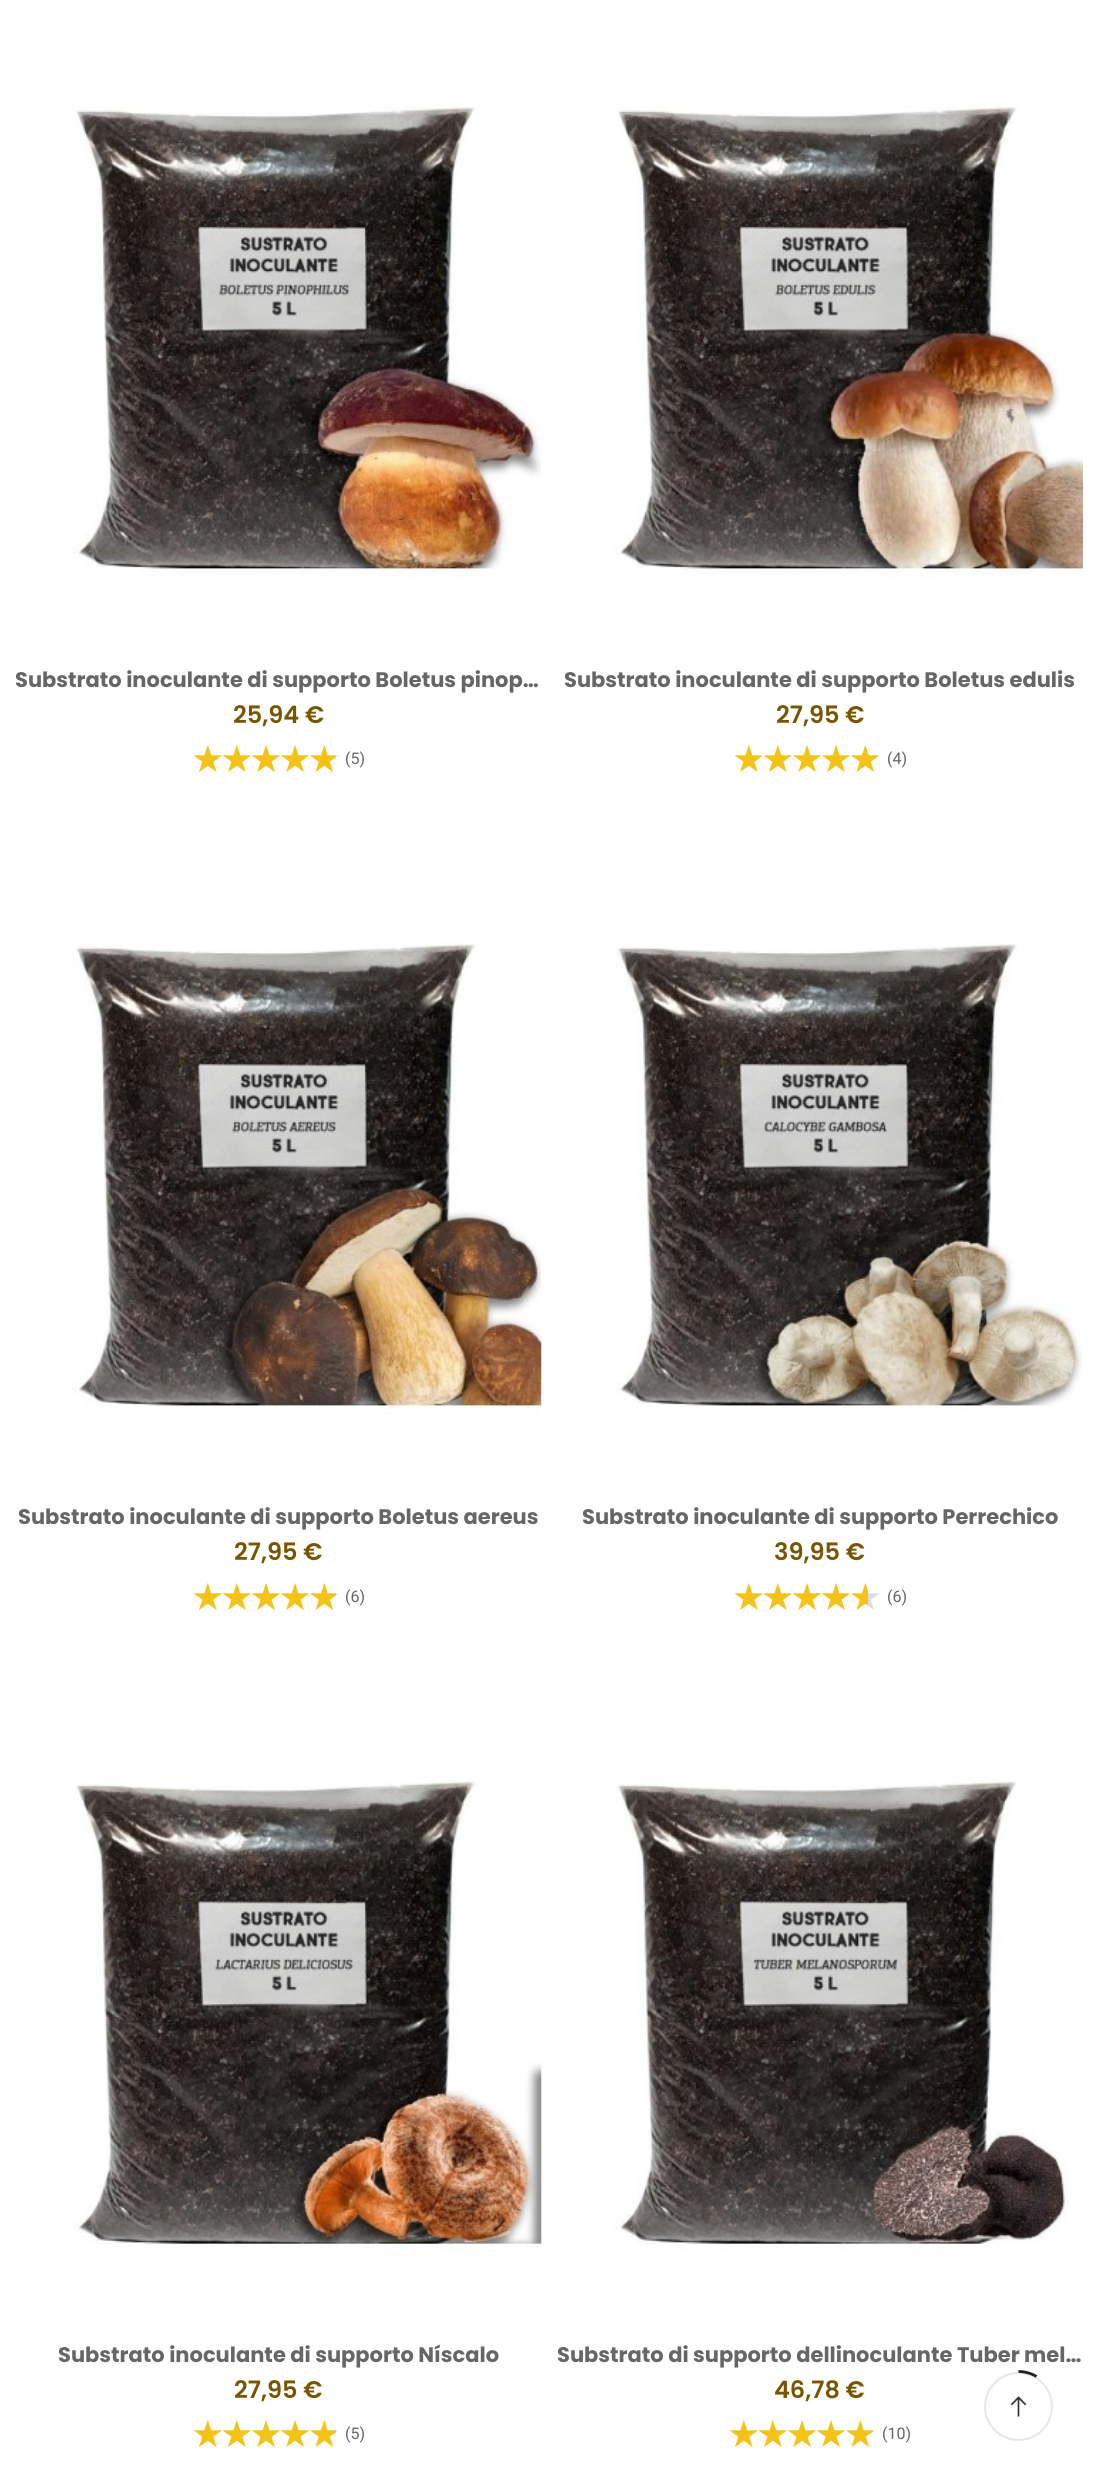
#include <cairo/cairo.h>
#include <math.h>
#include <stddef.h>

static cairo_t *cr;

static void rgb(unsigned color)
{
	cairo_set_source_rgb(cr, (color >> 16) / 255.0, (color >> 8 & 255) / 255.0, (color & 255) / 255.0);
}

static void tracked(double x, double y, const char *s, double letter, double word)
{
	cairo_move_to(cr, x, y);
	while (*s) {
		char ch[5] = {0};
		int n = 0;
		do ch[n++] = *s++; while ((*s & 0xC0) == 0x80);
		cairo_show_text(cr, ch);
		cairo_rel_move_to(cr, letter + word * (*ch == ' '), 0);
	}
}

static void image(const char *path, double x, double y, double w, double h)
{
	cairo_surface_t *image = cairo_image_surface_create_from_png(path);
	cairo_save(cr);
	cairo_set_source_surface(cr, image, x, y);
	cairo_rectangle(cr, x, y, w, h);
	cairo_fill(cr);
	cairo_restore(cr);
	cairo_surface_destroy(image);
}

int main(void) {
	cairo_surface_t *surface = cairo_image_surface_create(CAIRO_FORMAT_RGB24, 1098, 2485);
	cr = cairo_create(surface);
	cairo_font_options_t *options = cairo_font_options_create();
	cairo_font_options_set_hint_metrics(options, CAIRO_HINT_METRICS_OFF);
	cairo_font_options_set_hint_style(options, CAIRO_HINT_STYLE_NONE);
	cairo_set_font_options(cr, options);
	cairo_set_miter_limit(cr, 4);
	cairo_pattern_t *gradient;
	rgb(0xffffff);
	cairo_paint(cr);
	image("img/1.png", 72, 102, 469, 476);
	image("img/2.png", 614, 102, 469, 476);
	image("img/3.png", 72, 939, 470, 476);
	image("img/4.png", 614, 939, 469, 476);
	image("img/5.png", 72, 1776, 470, 478);
	image("img/6.png", 614, 1776, 455, 476);
	cairo_arc(cr, 1018.5, 2406.5, 33.5, 0, 2 * M_PI);
	rgb(0xe7e7e7);
	cairo_stroke(cr);
	cairo_new_path(cr);
	cairo_move_to(cr, 1018.5, 2371.5);
	cairo_curve_to(cr, 1025, 2371.5, 1031.5, 2373.5, 1036.5, 2376.5);
	rgb(0x222222);
	cairo_set_line_width(cr, 2.8);
	cairo_stroke(cr);
	image("img/7.png", 1010, 2396, 17, 21);
	cairo_select_font_face(cr, "Poppins", CAIRO_FONT_SLANT_NORMAL, CAIRO_FONT_WEIGHT_BOLD);
	cairo_set_font_size(cr, 21);
	rgb(0x666666);
	cairo_move_to(cr, 15, 687);
	cairo_show_text(cr, "Substrato inoculante di supporto Boletus pinop…");
	cairo_select_font_face(cr, "Poppins SemiBold", CAIRO_FONT_SLANT_NORMAL, CAIRO_FONT_WEIGHT_NORMAL);
	cairo_set_font_size(cr, 24);
	rgb(0x7a5500);
	cairo_move_to(cr, 233, 723);
	cairo_show_text(cr, "25,94 €");
	cairo_select_font_face(cr, "DejaVu Sans", CAIRO_FONT_SLANT_NORMAL, CAIRO_FONT_WEIGHT_NORMAL);
	cairo_set_font_size(cr, 37.5);
	gradient = cairo_pattern_create_linear(191, 760, 336, 760);
	cairo_pattern_add_color_stop_rgba(gradient, 1, 0.957, 0.765, 0.094, 1);
	cairo_pattern_add_color_stop_rgba(gradient, 1, 0.871, 0.871, 0.871, 1);
	cairo_set_source(cr, gradient);
	cairo_pattern_destroy(gradient);
	tracked(191, 772, "★★★★★", -4.5, 0);
	cairo_select_font_face(cr, "Roboto", CAIRO_FONT_SLANT_NORMAL, CAIRO_FONT_WEIGHT_NORMAL);
	cairo_set_font_size(cr, 16);
	rgb(0x666666);
	cairo_move_to(cr, 345, 764);
	cairo_show_text(cr, "(5)");
	cairo_select_font_face(cr, "Poppins", CAIRO_FONT_SLANT_NORMAL, CAIRO_FONT_WEIGHT_BOLD);
	cairo_set_font_size(cr, 21);
	cairo_move_to(cr, 564, 687);
	cairo_show_text(cr, "Substrato inoculante di supporto Boletus edulis");
	cairo_select_font_face(cr, "Poppins SemiBold", CAIRO_FONT_SLANT_NORMAL, CAIRO_FONT_WEIGHT_NORMAL);
	cairo_set_font_size(cr, 24);
	rgb(0x7a5500);
	cairo_move_to(cr, 776, 723);
	cairo_show_text(cr, "27,95 €");
	cairo_select_font_face(cr, "DejaVu Sans", CAIRO_FONT_SLANT_NORMAL, CAIRO_FONT_WEIGHT_NORMAL);
	cairo_set_font_size(cr, 37.5);
	gradient = cairo_pattern_create_linear(732, 760, 878, 760);
	cairo_pattern_add_color_stop_rgba(gradient, 1, 0.957, 0.765, 0.094, 1);
	cairo_pattern_add_color_stop_rgba(gradient, 1, 0.871, 0.871, 0.871, 1);
	cairo_set_source(cr, gradient);
	cairo_pattern_destroy(gradient);
	tracked(732, 772, "★★★★★", -4.5, 0);
	cairo_select_font_face(cr, "Roboto", CAIRO_FONT_SLANT_NORMAL, CAIRO_FONT_WEIGHT_NORMAL);
	cairo_set_font_size(cr, 16);
	rgb(0x666666);
	cairo_move_to(cr, 887, 764);
	cairo_show_text(cr, "(4)");
	cairo_select_font_face(cr, "Poppins", CAIRO_FONT_SLANT_NORMAL, CAIRO_FONT_WEIGHT_BOLD);
	cairo_set_font_size(cr, 21);
	cairo_move_to(cr, 18, 1524);
	cairo_show_text(cr, "Substrato inoculante di supporto Boletus aereus");
	cairo_select_font_face(cr, "Poppins SemiBold", CAIRO_FONT_SLANT_NORMAL, CAIRO_FONT_WEIGHT_NORMAL);
	cairo_set_font_size(cr, 24);
	rgb(0x7a5500);
	cairo_move_to(cr, 234, 1560);
	cairo_show_text(cr, "27,95 €");
	cairo_select_font_face(cr, "DejaVu Sans", CAIRO_FONT_SLANT_NORMAL, CAIRO_FONT_WEIGHT_NORMAL);
	cairo_set_font_size(cr, 37.5);
	gradient = cairo_pattern_create_linear(191, 1597, 336, 1597);
	cairo_pattern_add_color_stop_rgba(gradient, 1, 0.957, 0.765, 0.094, 1);
	cairo_pattern_add_color_stop_rgba(gradient, 1, 0.871, 0.871, 0.871, 1);
	cairo_set_source(cr, gradient);
	cairo_pattern_destroy(gradient);
	tracked(191, 1610, "★★★★★", -4.5, 0);
	cairo_select_font_face(cr, "Roboto", CAIRO_FONT_SLANT_NORMAL, CAIRO_FONT_WEIGHT_NORMAL);
	cairo_set_font_size(cr, 16);
	rgb(0x666666);
	cairo_move_to(cr, 345, 1602);
	cairo_show_text(cr, "(6)");
	cairo_select_font_face(cr, "Poppins", CAIRO_FONT_SLANT_NORMAL, CAIRO_FONT_WEIGHT_BOLD);
	cairo_set_font_size(cr, 21);
	cairo_move_to(cr, 582, 1524);
	cairo_show_text(cr, "Substrato inoculante di supporto Perrechico");
	cairo_select_font_face(cr, "Poppins SemiBold", CAIRO_FONT_SLANT_NORMAL, CAIRO_FONT_WEIGHT_NORMAL);
	cairo_set_font_size(cr, 24);
	rgb(0x7a5500);
	cairo_move_to(cr, 774, 1560);
	cairo_show_text(cr, "39,95 €");
	cairo_select_font_face(cr, "DejaVu Sans", CAIRO_FONT_SLANT_NORMAL, CAIRO_FONT_WEIGHT_NORMAL);
	cairo_set_font_size(cr, 37.5);
	gradient = cairo_pattern_create_linear(732, 1597, 878, 1597);
	cairo_pattern_add_color_stop_rgba(gradient, 0.93, 0.957, 0.765, 0.094, 1);
	cairo_pattern_add_color_stop_rgba(gradient, 0.93, 0.871, 0.871, 0.871, 1);
	cairo_set_source(cr, gradient);
	cairo_pattern_destroy(gradient);
	tracked(732, 1610, "★★★★★", -4.5, 0);
	cairo_select_font_face(cr, "Roboto", CAIRO_FONT_SLANT_NORMAL, CAIRO_FONT_WEIGHT_NORMAL);
	cairo_set_font_size(cr, 16);
	rgb(0x666666);
	cairo_move_to(cr, 887, 1602);
	cairo_show_text(cr, "(6)");
	cairo_select_font_face(cr, "Poppins", CAIRO_FONT_SLANT_NORMAL, CAIRO_FONT_WEIGHT_BOLD);
	cairo_set_font_size(cr, 21);
	cairo_move_to(cr, 58, 2362);
	cairo_show_text(cr, "Substrato inoculante di supporto Níscalo");
	cairo_select_font_face(cr, "Poppins SemiBold", CAIRO_FONT_SLANT_NORMAL, CAIRO_FONT_WEIGHT_NORMAL);
	cairo_set_font_size(cr, 24);
	rgb(0x7a5500);
	cairo_move_to(cr, 234, 2398);
	cairo_show_text(cr, "27,95 €");
	cairo_select_font_face(cr, "DejaVu Sans", CAIRO_FONT_SLANT_NORMAL, CAIRO_FONT_WEIGHT_NORMAL);
	cairo_set_font_size(cr, 37.5);
	gradient = cairo_pattern_create_linear(191, 2435, 336, 2435);
	cairo_pattern_add_color_stop_rgba(gradient, 1, 0.957, 0.765, 0.094, 1);
	cairo_pattern_add_color_stop_rgba(gradient, 1, 0.871, 0.871, 0.871, 1);
	cairo_set_source(cr, gradient);
	cairo_pattern_destroy(gradient);
	tracked(191, 2447, "★★★★★", -4.5, 0);
	cairo_select_font_face(cr, "Roboto", CAIRO_FONT_SLANT_NORMAL, CAIRO_FONT_WEIGHT_NORMAL);
	cairo_set_font_size(cr, 16);
	rgb(0x666666);
	cairo_move_to(cr, 345, 2439);
	cairo_show_text(cr, "(5)");
	cairo_select_font_face(cr, "Poppins", CAIRO_FONT_SLANT_NORMAL, CAIRO_FONT_WEIGHT_BOLD);
	cairo_set_font_size(cr, 21);
	cairo_move_to(cr, 557, 2362);
	cairo_show_text(cr, "Substrato di supporto dellinoculante Tuber mel…");
	cairo_select_font_face(cr, "Poppins SemiBold", CAIRO_FONT_SLANT_NORMAL, CAIRO_FONT_WEIGHT_NORMAL);
	cairo_set_font_size(cr, 24);
	rgb(0x7a5500);
	cairo_move_to(cr, 774, 2398);
	cairo_show_text(cr, "46,78 €");
	cairo_select_font_face(cr, "DejaVu Sans", CAIRO_FONT_SLANT_NORMAL, CAIRO_FONT_WEIGHT_NORMAL);
	cairo_set_font_size(cr, 37.5);
	gradient = cairo_pattern_create_linear(727, 2435, 873, 2435);
	cairo_pattern_add_color_stop_rgba(gradient, 1, 0.957, 0.765, 0.094, 1);
	cairo_pattern_add_color_stop_rgba(gradient, 1, 0.871, 0.871, 0.871, 1);
	cairo_set_source(cr, gradient);
	cairo_pattern_destroy(gradient);
	tracked(727, 2447, "★★★★★", -4.5, 0);
	cairo_select_font_face(cr, "Roboto", CAIRO_FONT_SLANT_NORMAL, CAIRO_FONT_WEIGHT_NORMAL);
	cairo_set_font_size(cr, 16);
	rgb(0x666666);
	cairo_move_to(cr, 882, 2439);
	cairo_show_text(cr, "(10)");
	cairo_surface_write_to_png(surface, "page.png");
	cairo_font_options_destroy(options);
	cairo_destroy(cr);
	cairo_surface_destroy(surface);
	return 0;
}
